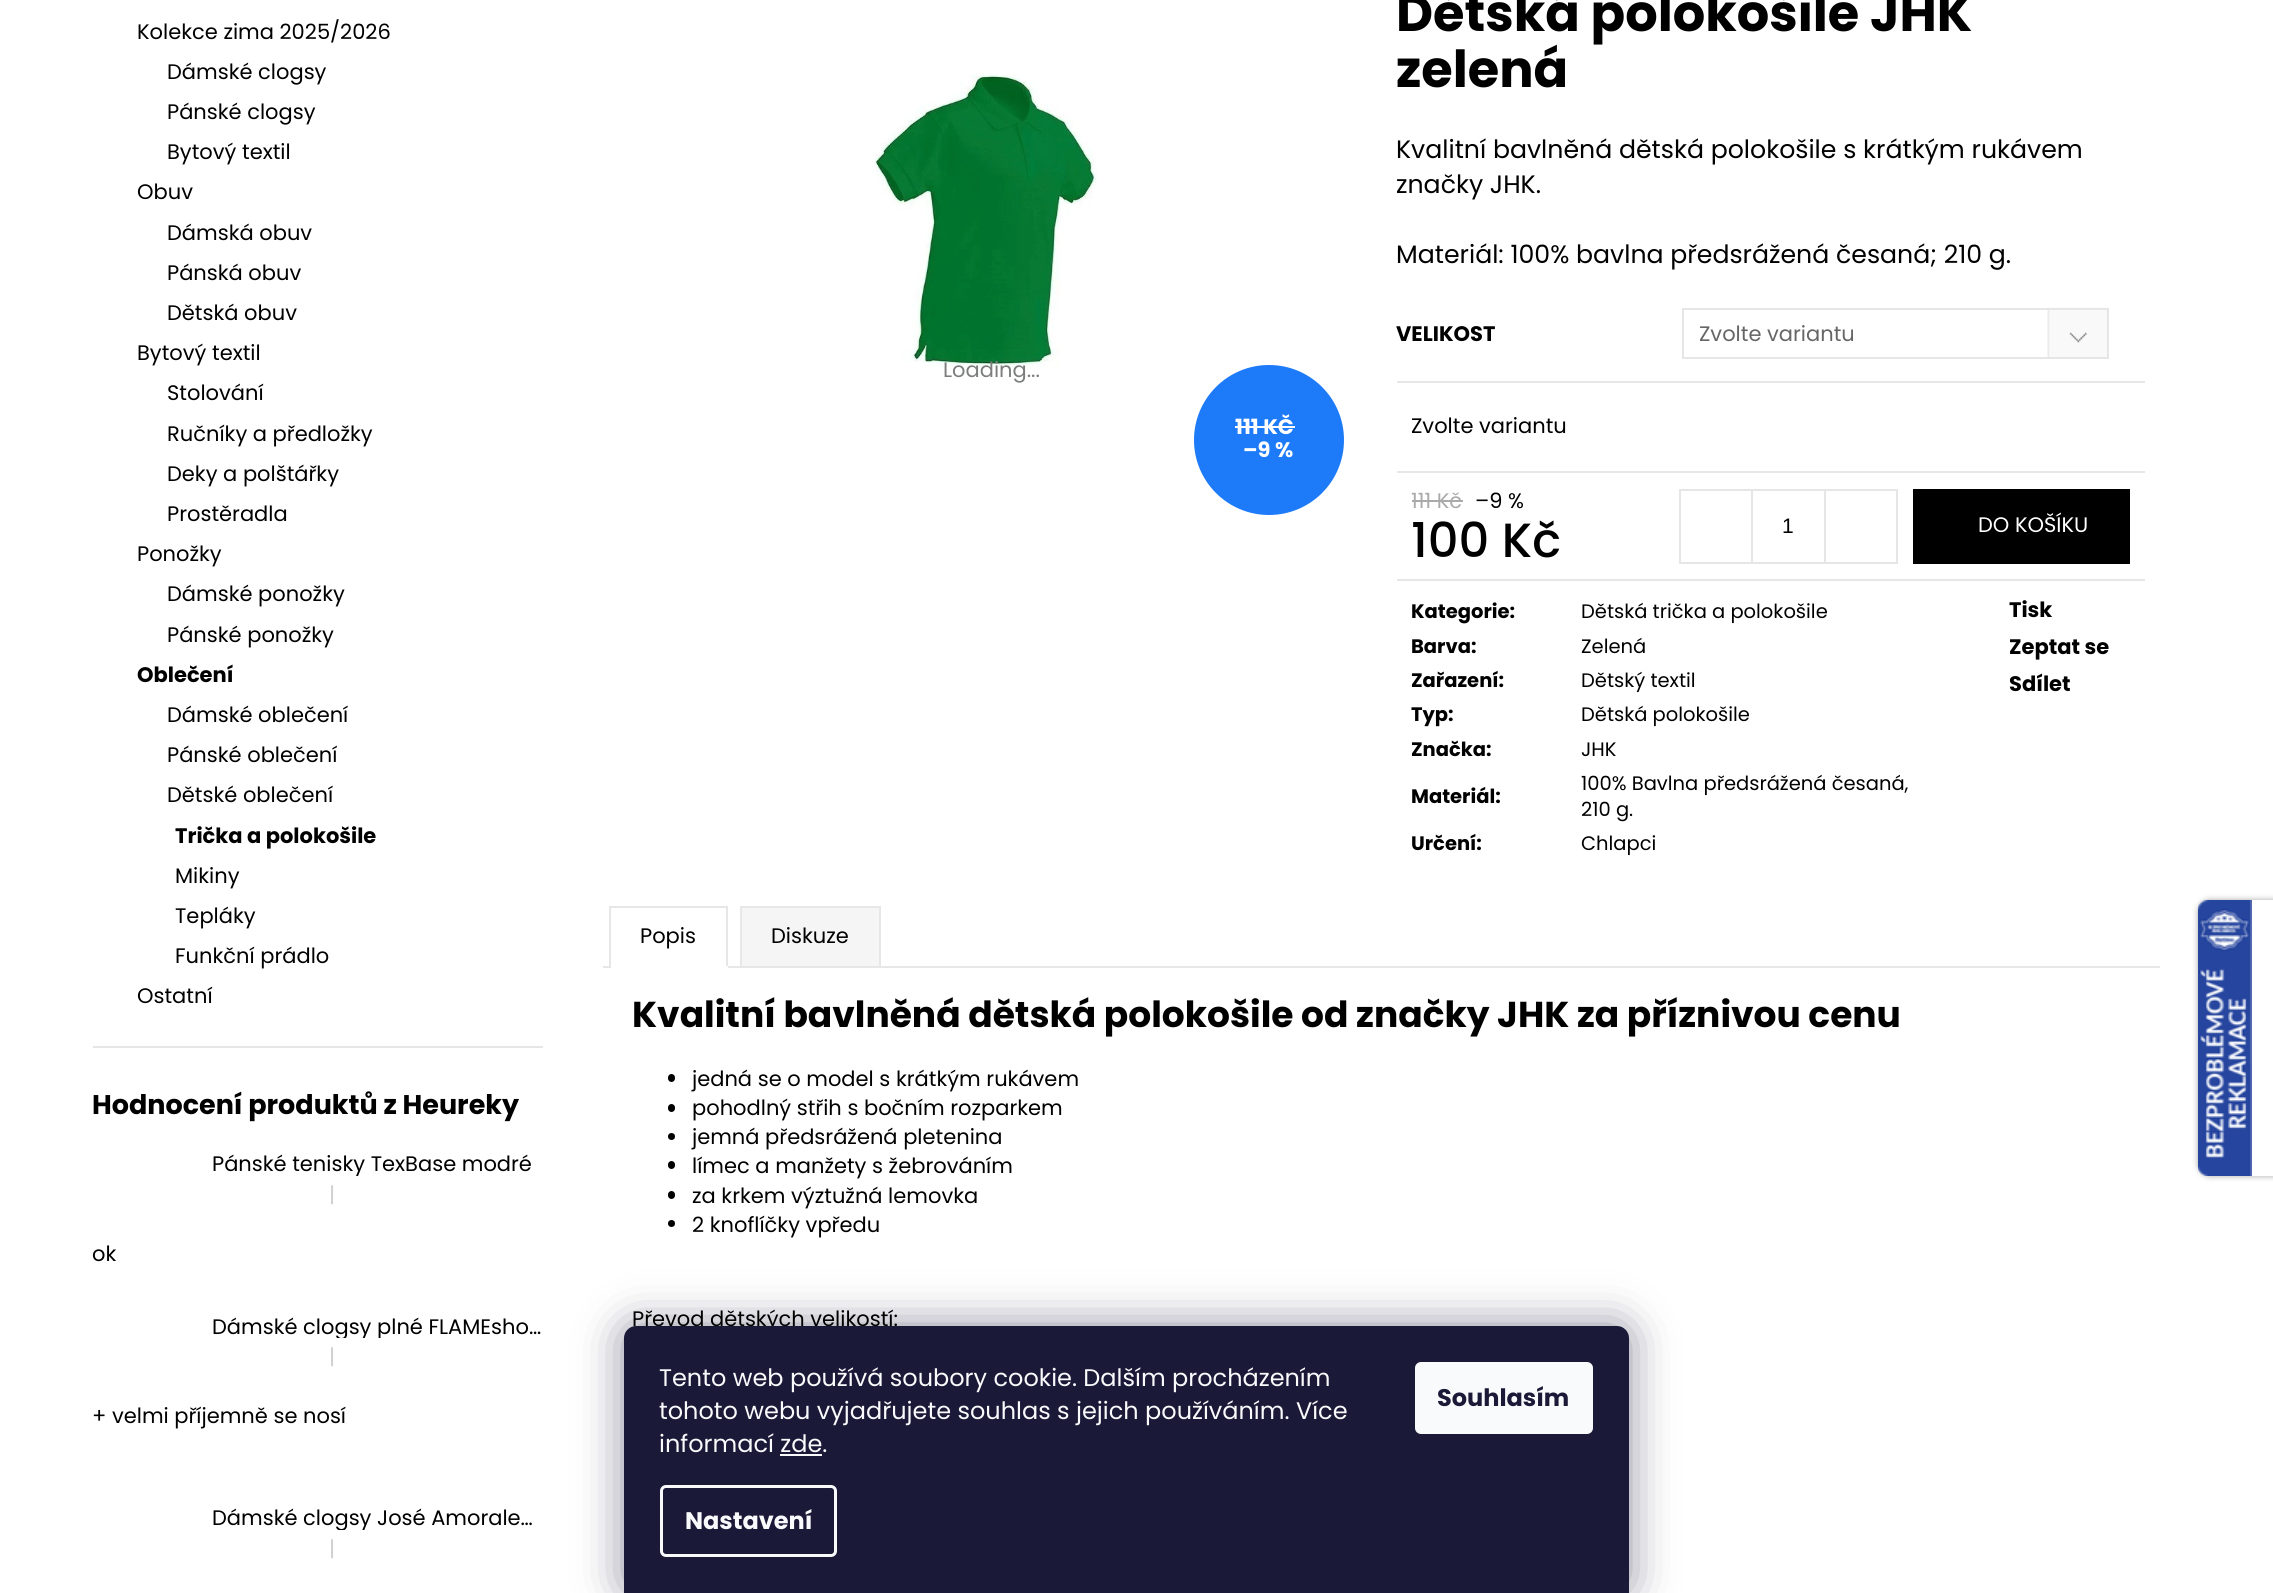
#include <cairo/cairo.h>
#include <math.h>
#include <stddef.h>

typedef struct { double x, y; const char *s; } line_t;
typedef struct { double x, y, w, h; unsigned color; } box_t;
static cairo_t *cr;

static void rgb(unsigned color)
{
	cairo_set_source_rgb(cr, (color >> 16) / 255.0, (color >> 8 & 255) / 255.0, (color & 255) / 255.0);
}

static void rrect(double x, double y, double w, double h, double r)
{
	cairo_new_sub_path(cr);
	cairo_arc(cr, x + w - r, y + h - r, r, 0, M_PI / 2);
	cairo_arc(cr, x + r, y + h - r, r, M_PI / 2, M_PI);
	cairo_arc(cr, x + r, y + r, r, M_PI, 1.5 * M_PI);
	cairo_arc(cr, x + w - r, y + r, r, 1.5 * M_PI, 2 * M_PI);
	cairo_close_path(cr);
}

static void soft_shadow(double x, double y, double w, double h, double r, double blur, double alpha)
{
	cairo_push_group_with_content(cr, CAIRO_CONTENT_ALPHA);
	cairo_set_operator(cr, CAIRO_OPERATOR_SOURCE);
	for (int i = 15; i >= -15 && fmin(w, h) + blur * i / 3 > 0; i -= 2) {
		double e = blur * i / 6;
		cairo_set_source_rgba(cr, 0, 0, 0, alpha * erfc((i - 1) / 8.5) / 2);
		rrect(x - e, y - e, w + 2 * e, h + 2 * e, fmax(0, fmin(r + e + blur * .6, fmin(w, h) / 2 + e)));
		cairo_fill(cr);
	}
	cairo_pattern_t *soft = cairo_pop_group(cr);
	cairo_mask(cr, soft);
	cairo_pattern_destroy(soft);
}

static void image(const char *path, double x, double y, double w, double h)
{
	cairo_surface_t *image = cairo_image_surface_create_from_png(path);
	cairo_save(cr);
	cairo_set_source_surface(cr, image, x, y);
	cairo_rectangle(cr, x, y, w, h);
	cairo_fill(cr);
	cairo_restore(cr);
	cairo_surface_destroy(image);
}

int main(void) {
	cairo_surface_t *surface = cairo_image_surface_create(CAIRO_FORMAT_RGB24, 2273, 1593);
	cr = cairo_create(surface);
	cairo_font_options_t *options = cairo_font_options_create();
	cairo_font_options_set_hint_metrics(options, CAIRO_HINT_METRICS_OFF);
	cairo_font_options_set_hint_style(options, CAIRO_HINT_STYLE_NONE);
	cairo_set_font_options(cr, options);
	cairo_set_miter_limit(cr, 4);
	rgb(0xffffff);
	cairo_paint(cr);
	rgb(0xe6e6e6);
	cairo_rectangle(cr, 93, 1046, 450, 2);
	cairo_fill(cr);
	image("img/1.png", 874, 74, 224, 293);
	rgb(0x1d7af8);
	cairo_arc(cr, 1269, 440, 75, 0, 2 * M_PI);
	cairo_fill(cr);
	rgb(0xffffff);
	cairo_rectangle(cr, 1235, 426, 60, 2);
	cairo_fill(cr);
	image("img/2.png", 2047, 307, 60, 50);
	cairo_rectangle(cr, 1683, 309, 425, 49);
	rgb(0xe6e6e6);
	cairo_stroke(cr);
	{
		static const box_t items[] = {
			{1397, 381, 748, 2, 0xe7e7e7},
			{1397, 471, 748, 2, 0xe7e7e7},
			{1397, 579, 748, 2, 0xe7e7e7},
			{1412, 500, 51, 2, 0xaaaaaa},
		};
		for (size_t i = 0; i < sizeof items / sizeof *items; i++) {
			rgb(items[i].color);
			cairo_rectangle(cr, items[i].x, items[i].y, items[i].w, items[i].h);
			cairo_fill(cr);
		}
	}
	cairo_rectangle(cr, 1680, 490, 217, 73);
	rgb(0xe6e6e6);
	cairo_stroke(cr);
	{
		static const box_t items[] = {
			{1751, 491, 2, 72, 0xe6e6e6},
			{1824, 491, 2, 72, 0xe6e6e6},
			{1913, 489, 217, 75, 0x000000},
			{603, 966, 1557, 2, 0xe7e7e7},
			{609, 906, 119, 2, 0xe7e7e7},
			{726, 906, 2, 62, 0xe7e7e7},
			{609, 966, 119, 2, 0xffffff},
			{609, 906, 2, 62, 0xe7e7e7},
		};
		for (size_t i = 0; i < sizeof items / sizeof *items; i++) {
			rgb(items[i].color);
			cairo_rectangle(cr, items[i].x, items[i].y, items[i].w, items[i].h);
			cairo_fill(cr);
		}
	}
	rgb(0xf5f5f5);
	cairo_rectangle(cr, 741, 907, 139, 60);
	cairo_fill_preserve(cr);
	rgb(0xe7e7e7);
	cairo_stroke(cr);
	rgb(0x000000);
	rrect(668, 1074, 7, 8, 3.5);
	cairo_fill(cr);
	rrect(668, 1104, 7, 8, 3.5);
	cairo_fill(cr);
	cairo_arc(cr, 671.5, 1136.5, 3.5, 0, 2 * M_PI);
	cairo_fill(cr);
	rrect(668, 1161, 7, 8, 3.5);
	cairo_fill(cr);
	rrect(668, 1191, 7, 8, 3.5);
	cairo_fill(cr);
	cairo_arc(cr, 671.5, 1223.5, 3.5, 0, 2 * M_PI);
	cairo_fill(cr);
	cairo_save(cr);
	cairo_set_fill_rule(cr, CAIRO_FILL_RULE_EVEN_ODD);
	cairo_new_path(cr);
	cairo_move_to(cr, 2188, 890);
	cairo_line_to(cr, 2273, 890);
	cairo_line_to(cr, 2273, 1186);
	cairo_line_to(cr, 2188, 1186);
	cairo_close_path(cr);
	cairo_move_to(cr, 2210, 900);
	cairo_line_to(cr, 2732, 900);
	cairo_line_to(cr, 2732, 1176);
	cairo_line_to(cr, 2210, 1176);
	cairo_curve_to(cr, 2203.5, 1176, 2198, 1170.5, 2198, 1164);
	cairo_line_to(cr, 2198, 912);
	cairo_curve_to(cr, 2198, 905.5, 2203.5, 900, 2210, 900);
	cairo_close_path(cr);
	cairo_clip(cr);
	rgb(0x000000);
	soft_shadow(2198, 900, 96, 276, 12, 3, 0.35);
	cairo_restore(cr);
	image("img/3.png", 2198, 900, 54, 276);
	rgb(0x1b1939);
	soft_shadow(624, 1326, 1005, 267, 12, 22.5, 0.5);
	cairo_select_font_face(cr, "Poppins", CAIRO_FONT_SLANT_NORMAL, CAIRO_FONT_WEIGHT_NORMAL);
	cairo_set_font_size(cr, 21);
	rgb(0x000000);
	{
		static const line_t items[] = {
			{137, 39, "Kolekce zima 2025/2026"},
			{167, 79, "Dámské clogsy"},
			{167, 119, "Pánské clogsy"},
			{167, 159, "Bytový textil"},
			{137, 199, "Obuv"},
			{167, 240, "Dámská obuv"},
			{167, 280, "Pánská obuv"},
			{167, 320, "Dětská obuv"},
			{137, 360, "Bytový textil"},
			{167, 400, "Stolování"},
			{167, 441, "Ručníky a předložky"},
			{167, 481, "Deky a polštářky"},
			{167, 521, "Prostěradla"},
			{137, 561, "Ponožky"},
			{167, 601, "Dámské ponožky"},
			{167, 642, "Pánské ponožky"},
		};
		for (size_t i = 0; i < sizeof items / sizeof *items; i++) {
			cairo_move_to(cr, items[i].x, items[i].y);
			cairo_show_text(cr, items[i].s);
		}
	}
	cairo_select_font_face(cr, "Poppins", CAIRO_FONT_SLANT_NORMAL, CAIRO_FONT_WEIGHT_BOLD);
	cairo_move_to(cr, 137, 682);
	cairo_show_text(cr, "Oblečení");
	cairo_select_font_face(cr, "Poppins", CAIRO_FONT_SLANT_NORMAL, CAIRO_FONT_WEIGHT_NORMAL);
	{
		static const line_t items[] = {
			{167, 722, "Dámské oblečení"},
			{167, 762, "Pánské oblečení"},
			{167, 802, "Dětské oblečení"},
		};
		for (size_t i = 0; i < sizeof items / sizeof *items; i++) {
			cairo_move_to(cr, items[i].x, items[i].y);
			cairo_show_text(cr, items[i].s);
		}
	}
	cairo_select_font_face(cr, "Poppins", CAIRO_FONT_SLANT_NORMAL, CAIRO_FONT_WEIGHT_BOLD);
	cairo_move_to(cr, 175, 843);
	cairo_show_text(cr, "Trička a polokošile");
	cairo_select_font_face(cr, "Poppins", CAIRO_FONT_SLANT_NORMAL, CAIRO_FONT_WEIGHT_NORMAL);
	{
		static const line_t items[] = {
			{175, 883, "Mikiny"},
			{175, 923, "Tepláky"},
			{175, 963, "Funkční prádlo"},
			{137, 1003, "Ostatní"},
		};
		for (size_t i = 0; i < sizeof items / sizeof *items; i++) {
			cairo_move_to(cr, items[i].x, items[i].y);
			cairo_show_text(cr, items[i].s);
		}
	}
	cairo_select_font_face(cr, "Poppins", CAIRO_FONT_SLANT_NORMAL, CAIRO_FONT_WEIGHT_BOLD);
	cairo_set_font_size(cr, 27);
	cairo_move_to(cr, 92, 1114);
	cairo_show_text(cr, "Hodnocení produktů z Heureky");
	cairo_save(cr);
	cairo_rectangle(cr, 213, 1154, 330, 22);
	cairo_clip(cr);
	cairo_select_font_face(cr, "Poppins", CAIRO_FONT_SLANT_NORMAL, CAIRO_FONT_WEIGHT_NORMAL);
	cairo_set_font_size(cr, 21);
	cairo_move_to(cr, 212, 1171);
	cairo_show_text(cr, "Pánské tenisky TexBase modré");
	cairo_restore(cr);
	cairo_select_font_face(cr, "Poppins", CAIRO_FONT_SLANT_NORMAL, CAIRO_FONT_WEIGHT_NORMAL);
	cairo_set_font_size(cr, 21);
	rgb(0xcfcfcf);
	cairo_move_to(cr, 329, 1202);
	cairo_show_text(cr, "|");
	rgb(0x000000);
	cairo_move_to(cr, 92, 1261);
	cairo_show_text(cr, "ok");
	cairo_save(cr);
	cairo_rectangle(cr, 213, 1316, 330, 22);
	cairo_clip(cr);
	cairo_move_to(cr, 212, 1334);
	cairo_show_text(cr, "Dámské clogsy plné FLAMEsho…");
	cairo_restore(cr);
	rgb(0xcfcfcf);
	cairo_move_to(cr, 329, 1364);
	cairo_show_text(cr, "|");
	rgb(0x000000);
	cairo_move_to(cr, 92, 1423);
	cairo_show_text(cr, "+ velmi příjemně se nosí");
	cairo_save(cr);
	cairo_rectangle(cr, 213, 1508, 330, 22);
	cairo_clip(cr);
	cairo_move_to(cr, 212, 1525);
	cairo_show_text(cr, "Dámské clogsy José Amorale…");
	cairo_restore(cr);
	rgb(0xcfcfcf);
	cairo_move_to(cr, 329, 1556);
	cairo_show_text(cr, "|");
	rgb(0x7c7e7d);
	cairo_move_to(cr, 943, 377);
	cairo_show_text(cr, "Loading...");
	cairo_select_font_face(cr, "Poppins", CAIRO_FONT_SLANT_NORMAL, CAIRO_FONT_WEIGHT_BOLD);
	rgb(0xffffff);
	cairo_move_to(cr, 1235, 434);
	cairo_show_text(cr, "111 KČ");
	cairo_move_to(cr, 1243, 457);
	cairo_show_text(cr, "–9 %");
	cairo_set_font_size(cr, 51);
	rgb(0x000000);
	cairo_move_to(cr, 1396, 31);
	cairo_show_text(cr, "Dětská polokošile JHK");
	cairo_move_to(cr, 1396, 87);
	cairo_show_text(cr, "zelená");
	cairo_select_font_face(cr, "Poppins", CAIRO_FONT_SLANT_NORMAL, CAIRO_FONT_WEIGHT_NORMAL);
	cairo_set_font_size(cr, 25.2);
	{
		static const line_t items[] = {
			{1396, 158, "Kvalitní bavlněná dětská polokošile s krátkým rukávem"},
			{1396, 193, "značky JHK."},
			{1396, 263, "Materiál: 100% bavlna předsrážená česaná; 210 g."},
		};
		for (size_t i = 0; i < sizeof items / sizeof *items; i++) {
			cairo_move_to(cr, items[i].x, items[i].y);
			cairo_show_text(cr, items[i].s);
		}
	}
	cairo_select_font_face(cr, "Poppins", CAIRO_FONT_SLANT_NORMAL, CAIRO_FONT_WEIGHT_BOLD);
	cairo_set_font_size(cr, 21);
	cairo_move_to(cr, 1396, 341);
	cairo_show_text(cr, "VELIKOST");
	cairo_save(cr);
	cairo_rectangle(cr, 1700, 317, 340, 33);
	cairo_clip(cr);
	cairo_select_font_face(cr, "Poppins", CAIRO_FONT_SLANT_NORMAL, CAIRO_FONT_WEIGHT_NORMAL);
	rgb(0x666666);
	cairo_move_to(cr, 1699, 341);
	cairo_show_text(cr, "Zvolte variantu");
	cairo_restore(cr);
	cairo_select_font_face(cr, "Poppins", CAIRO_FONT_SLANT_NORMAL, CAIRO_FONT_WEIGHT_NORMAL);
	cairo_move_to(cr, 1411, 433);
	cairo_show_text(cr, "Zvolte variantu");
	rgb(0xaaaaaa);
	cairo_move_to(cr, 1411, 508);
	cairo_show_text(cr, "111 Kč");
	rgb(0x000000);
	cairo_move_to(cr, 1475, 508);
	cairo_show_text(cr, "–9 %");
	cairo_select_font_face(cr, "Poppins Medium", CAIRO_FONT_SLANT_NORMAL, CAIRO_FONT_WEIGHT_NORMAL);
	cairo_set_font_size(cr, 48);
	cairo_move_to(cr, 1411, 557);
	cairo_show_text(cr, "100 Kč");
	cairo_select_font_face(cr, "Liberation Sans", CAIRO_FONT_SLANT_NORMAL, CAIRO_FONT_WEIGHT_NORMAL);
	cairo_set_font_size(cr, 21);
	cairo_move_to(cr, 1782, 533);
	cairo_show_text(cr, "1");
	cairo_select_font_face(cr, "Poppins", CAIRO_FONT_SLANT_NORMAL, CAIRO_FONT_WEIGHT_NORMAL);
	rgb(0xffffff);
	cairo_move_to(cr, 1978, 532);
	cairo_show_text(cr, "DO KOŠÍKU");
	cairo_select_font_face(cr, "Poppins", CAIRO_FONT_SLANT_NORMAL, CAIRO_FONT_WEIGHT_BOLD);
	cairo_set_font_size(cr, 19.5);
	rgb(0x000000);
	cairo_move_to(cr, 1411, 618);
	cairo_show_text(cr, "Kategorie:");
	cairo_select_font_face(cr, "Poppins", CAIRO_FONT_SLANT_NORMAL, CAIRO_FONT_WEIGHT_NORMAL);
	cairo_move_to(cr, 1581, 618);
	cairo_show_text(cr, "Dětská trička a polokošile");
	cairo_select_font_face(cr, "Poppins", CAIRO_FONT_SLANT_NORMAL, CAIRO_FONT_WEIGHT_BOLD);
	cairo_move_to(cr, 1411, 653);
	cairo_show_text(cr, "Barva:");
	cairo_select_font_face(cr, "Poppins", CAIRO_FONT_SLANT_NORMAL, CAIRO_FONT_WEIGHT_NORMAL);
	cairo_move_to(cr, 1581, 653);
	cairo_show_text(cr, "Zelená");
	cairo_select_font_face(cr, "Poppins", CAIRO_FONT_SLANT_NORMAL, CAIRO_FONT_WEIGHT_BOLD);
	cairo_move_to(cr, 1411, 687);
	cairo_show_text(cr, "Zařazení:");
	cairo_select_font_face(cr, "Poppins", CAIRO_FONT_SLANT_NORMAL, CAIRO_FONT_WEIGHT_NORMAL);
	cairo_move_to(cr, 1581, 687);
	cairo_show_text(cr, "Dětský textil");
	cairo_select_font_face(cr, "Poppins", CAIRO_FONT_SLANT_NORMAL, CAIRO_FONT_WEIGHT_BOLD);
	cairo_move_to(cr, 1411, 721);
	cairo_show_text(cr, "Typ:");
	cairo_select_font_face(cr, "Poppins", CAIRO_FONT_SLANT_NORMAL, CAIRO_FONT_WEIGHT_NORMAL);
	cairo_move_to(cr, 1581, 721);
	cairo_show_text(cr, "Dětská polokošile");
	cairo_select_font_face(cr, "Poppins", CAIRO_FONT_SLANT_NORMAL, CAIRO_FONT_WEIGHT_BOLD);
	cairo_move_to(cr, 1411, 756);
	cairo_show_text(cr, "Značka:");
	cairo_select_font_face(cr, "Poppins", CAIRO_FONT_SLANT_NORMAL, CAIRO_FONT_WEIGHT_NORMAL);
	cairo_move_to(cr, 1581, 756);
	cairo_show_text(cr, "JHK");
	cairo_select_font_face(cr, "Poppins", CAIRO_FONT_SLANT_NORMAL, CAIRO_FONT_WEIGHT_BOLD);
	cairo_move_to(cr, 1411, 803);
	cairo_show_text(cr, "Materiál:");
	cairo_select_font_face(cr, "Poppins", CAIRO_FONT_SLANT_NORMAL, CAIRO_FONT_WEIGHT_NORMAL);
	cairo_move_to(cr, 1581, 790);
	cairo_show_text(cr, "100% Bavlna předsrážená česaná,");
	cairo_move_to(cr, 1581, 816);
	cairo_show_text(cr, "210 g.");
	cairo_select_font_face(cr, "Poppins", CAIRO_FONT_SLANT_NORMAL, CAIRO_FONT_WEIGHT_BOLD);
	cairo_move_to(cr, 1411, 850);
	cairo_show_text(cr, "Určení:");
	cairo_select_font_face(cr, "Poppins", CAIRO_FONT_SLANT_NORMAL, CAIRO_FONT_WEIGHT_NORMAL);
	cairo_move_to(cr, 1581, 850);
	cairo_show_text(cr, "Chlapci");
	cairo_select_font_face(cr, "Poppins", CAIRO_FONT_SLANT_NORMAL, CAIRO_FONT_WEIGHT_BOLD);
	cairo_set_font_size(cr, 21);
	{
		static const line_t items[] = {
			{2009, 617, "Tisk"},
			{2009, 654, "Zeptat se"},
			{2009, 691, "Sdílet"},
		};
		for (size_t i = 0; i < sizeof items / sizeof *items; i++) {
			cairo_move_to(cr, items[i].x, items[i].y);
			cairo_show_text(cr, items[i].s);
		}
	}
	cairo_select_font_face(cr, "Poppins", CAIRO_FONT_SLANT_NORMAL, CAIRO_FONT_WEIGHT_NORMAL);
	cairo_move_to(cr, 640, 943);
	cairo_show_text(cr, "Popis");
	cairo_move_to(cr, 771, 943);
	cairo_show_text(cr, "Diskuze");
	cairo_select_font_face(cr, "Poppins", CAIRO_FONT_SLANT_NORMAL, CAIRO_FONT_WEIGHT_BOLD);
	cairo_set_font_size(cr, 36);
	cairo_move_to(cr, 632, 1027);
	cairo_show_text(cr, "Kvalitní bavlněná dětská polokošile od značky JHK za příznivou cenu");
	cairo_select_font_face(cr, "Poppins", CAIRO_FONT_SLANT_NORMAL, CAIRO_FONT_WEIGHT_NORMAL);
	cairo_set_font_size(cr, 21);
	{
		static const line_t items[] = {
			{692, 1086, "jedná se o model s krátkým rukávem"},
			{692, 1115, "pohodlný střih s bočním rozparkem"},
			{692, 1144, "jemná předsrážená pletenina"},
			{692, 1173, "límec a manžety s žebrováním"},
			{692, 1203, "za krkem výztužná lemovka"},
			{692, 1232, "2 knoflíčky vpředu"},
			{632, 1326, "Převod dětských velikostí:"},
		};
		for (size_t i = 0; i < sizeof items / sizeof *items; i++) {
			cairo_move_to(cr, items[i].x, items[i].y);
			cairo_show_text(cr, items[i].s);
		}
	}
	rgb(0x1a1937);
	cairo_new_path(cr);
	cairo_move_to(cr, 636, 1326);
	cairo_line_to(cr, 1617, 1326);
	cairo_curve_to(cr, 1623.5, 1326, 1629, 1331.5, 1629, 1338);
	cairo_line_to(cr, 1629, 1593);
	cairo_line_to(cr, 624, 1593);
	cairo_line_to(cr, 624, 1338);
	cairo_curve_to(cr, 624, 1331.5, 629.5, 1326, 636, 1326);
	cairo_close_path(cr);
	cairo_fill(cr);
	cairo_set_font_size(cr, 24);
	rgb(0xf8fafb);
	{
		static const line_t items[] = {
			{659, 1386, "Tento web používá soubory cookie. Dalším procházením"},
			{659, 1419, "tohoto webu vyjadřujete souhlas s jejich používáním. Více"},
			{659, 1452, "informací zde."},
		};
		for (size_t i = 0; i < sizeof items / sizeof *items; i++) {
			cairo_move_to(cr, items[i].x, items[i].y);
			cairo_show_text(cr, items[i].s);
		}
	}
	cairo_rectangle(cr, 780, 1454, 42, 2);
	cairo_fill(cr);
	rrect(661.5, 1486.5, 174, 69, 4.5);
	cairo_set_line_width(cr, 3);
	cairo_stroke(cr);
	cairo_select_font_face(cr, "Poppins", CAIRO_FONT_SLANT_NORMAL, CAIRO_FONT_WEIGHT_BOLD);
	cairo_move_to(cr, 685, 1529);
	cairo_show_text(cr, "Nastavení");
	rrect(1415, 1362, 178, 72, 6);
	cairo_fill(cr);
	rgb(0x1a1937);
	cairo_move_to(cr, 1437, 1406);
	cairo_show_text(cr, "Souhlasím");
	cairo_surface_write_to_png(surface, "page.png");
	cairo_font_options_destroy(options);
	cairo_destroy(cr);
	cairo_surface_destroy(surface);
	return 0;
}
